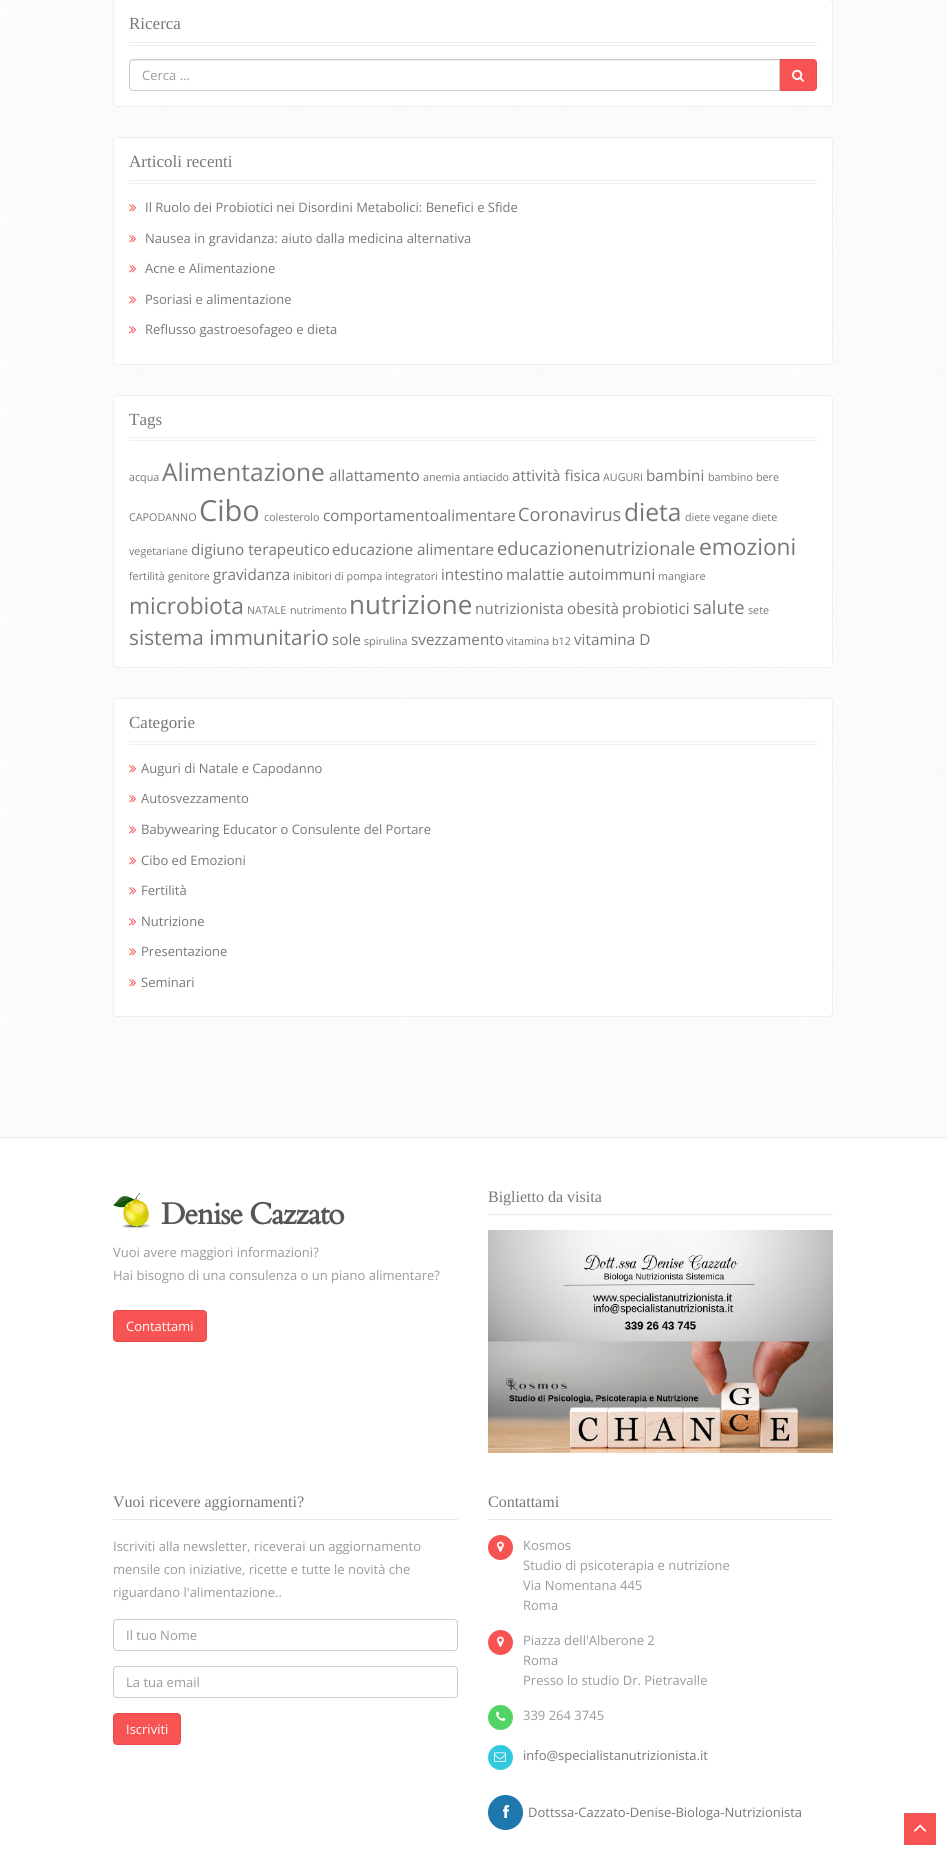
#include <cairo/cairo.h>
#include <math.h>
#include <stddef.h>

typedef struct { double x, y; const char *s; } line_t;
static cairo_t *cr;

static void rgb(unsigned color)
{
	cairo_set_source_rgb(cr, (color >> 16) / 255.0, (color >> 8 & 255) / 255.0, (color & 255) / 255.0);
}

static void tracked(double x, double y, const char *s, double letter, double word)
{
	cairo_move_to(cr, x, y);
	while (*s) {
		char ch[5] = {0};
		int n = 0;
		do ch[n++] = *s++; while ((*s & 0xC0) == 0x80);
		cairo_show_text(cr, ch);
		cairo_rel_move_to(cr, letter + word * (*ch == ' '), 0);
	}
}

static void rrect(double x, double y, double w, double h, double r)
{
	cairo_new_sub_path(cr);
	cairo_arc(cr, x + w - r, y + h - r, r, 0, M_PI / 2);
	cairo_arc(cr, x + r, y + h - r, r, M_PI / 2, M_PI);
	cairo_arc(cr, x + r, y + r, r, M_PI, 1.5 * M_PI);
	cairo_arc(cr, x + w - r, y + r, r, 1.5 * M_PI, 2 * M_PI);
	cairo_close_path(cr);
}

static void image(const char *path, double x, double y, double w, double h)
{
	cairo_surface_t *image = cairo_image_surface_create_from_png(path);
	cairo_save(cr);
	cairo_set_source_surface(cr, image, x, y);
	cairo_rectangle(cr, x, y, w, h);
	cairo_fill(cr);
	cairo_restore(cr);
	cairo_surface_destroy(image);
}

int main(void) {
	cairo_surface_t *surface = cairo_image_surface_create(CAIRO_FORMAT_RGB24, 946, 1855);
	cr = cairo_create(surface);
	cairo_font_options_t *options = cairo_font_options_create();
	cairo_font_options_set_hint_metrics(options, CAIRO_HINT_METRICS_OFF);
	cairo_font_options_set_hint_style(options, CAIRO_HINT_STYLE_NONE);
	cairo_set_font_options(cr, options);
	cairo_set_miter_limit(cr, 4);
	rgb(0xffffff);
	cairo_paint(cr);
	image("img/1.png", 0, 0, 946, 1137);
	rgb(0xffffff);
	rrect(113.5, -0.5, 719, 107, 3.5);
	cairo_fill_preserve(cr);
	rgb(0xeeeeee);
	cairo_set_line_width(cr, 1);
	cairo_stroke(cr);
	cairo_rectangle(cr, 129, 42, 688, 1);
	cairo_fill(cr);
	cairo_rectangle(cr, 129, 45, 688, 1);
	cairo_fill(cr);
	rgb(0xf75353);
	cairo_new_path(cr);
	cairo_move_to(cr, 779.5, 59.5);
	cairo_line_to(cr, 813, 59.5);
	cairo_curve_to(cr, 815, 59.5, 816.5, 61, 816.5, 63);
	cairo_line_to(cr, 816.5, 87);
	cairo_curve_to(cr, 816.5, 89, 815, 90.5, 813, 90.5);
	cairo_line_to(cr, 779.5, 90.5);
	cairo_close_path(cr);
	cairo_fill_preserve(cr);
	rgb(0xed4747);
	cairo_stroke(cr);
	rgb(0xffffff);
	cairo_new_path(cr);
	cairo_move_to(cr, 133, 59);
	cairo_line_to(cr, 780, 59);
	cairo_line_to(cr, 780, 91);
	cairo_line_to(cr, 133, 91);
	cairo_curve_to(cr, 131, 91, 129, 89, 129, 87);
	cairo_line_to(cr, 129, 63);
	cairo_curve_to(cr, 129, 61, 131, 59, 133, 59);
	cairo_close_path(cr);
	cairo_fill(cr);
	rgb(0xececec);
	cairo_new_path(cr);
	cairo_move_to(cr, 133, 61);
	cairo_line_to(cr, 779, 61);
	cairo_line_to(cr, 779, 60);
	cairo_line_to(cr, 133, 60);
	cairo_curve_to(cr, 131, 60, 130, 61, 130, 63);
	cairo_line_to(cr, 130, 64);
	cairo_curve_to(cr, 130, 62, 131, 61, 133, 61);
	cairo_close_path(cr);
	cairo_fill(cr);
	cairo_new_path(cr);
	cairo_move_to(cr, 133, 59.5);
	cairo_line_to(cr, 779.5, 59.5);
	cairo_line_to(cr, 779.5, 90.5);
	cairo_line_to(cr, 133, 90.5);
	cairo_curve_to(cr, 131, 90.5, 129.5, 89, 129.5, 87);
	cairo_line_to(cr, 129.5, 63);
	cairo_curve_to(cr, 129.5, 61, 131, 59.5, 133, 59.5);
	cairo_close_path(cr);
	rgb(0xcccccc);
	cairo_stroke(cr);
	image("img/2.png", 792, 69, 12, 13);
	rgb(0xffffff);
	rrect(113.5, 137.5, 719, 227, 3.5);
	cairo_fill_preserve(cr);
	rgb(0xeeeeee);
	cairo_stroke(cr);
	cairo_rectangle(cr, 129, 180, 688, 1);
	cairo_fill(cr);
	cairo_rectangle(cr, 129, 183, 688, 1);
	cairo_fill(cr);
	image("img/3.png", 129, 204, 8, 8);
	image("img/3.png", 129, 235, 8, 8);
	image("img/3.png", 129, 265, 8, 8);
	image("img/3.png", 129, 296, 8, 8);
	image("img/3.png", 129, 326, 8, 8);
	rgb(0xffffff);
	rrect(113.5, 395.5, 719, 272, 3.5);
	cairo_fill_preserve(cr);
	rgb(0xeeeeee);
	cairo_stroke(cr);
	cairo_rectangle(cr, 129, 437, 688, 1);
	cairo_fill(cr);
	cairo_rectangle(cr, 129, 440, 688, 1);
	cairo_fill(cr);
	rgb(0xffffff);
	rrect(113.5, 698.5, 719, 318, 3.5);
	cairo_fill_preserve(cr);
	rgb(0xeeeeee);
	cairo_stroke(cr);
	cairo_rectangle(cr, 129, 741, 688, 1);
	cairo_fill(cr);
	cairo_rectangle(cr, 129, 744, 688, 1);
	cairo_fill(cr);
	image("img/3.png", 129, 765, 8, 8);
	image("img/3.png", 129, 795, 8, 8);
	image("img/3.png", 129, 826, 8, 8);
	image("img/3.png", 129, 857, 8, 8);
	image("img/3.png", 129, 887, 8, 8);
	image("img/3.png", 129, 918, 8, 8);
	image("img/3.png", 129, 948, 8, 8);
	image("img/3.png", 129, 979, 8, 8);
	rgb(0xeaeaea);
	cairo_rectangle(cr, 0, 1137, 946, 1);
	cairo_fill(cr);
	cairo_rectangle(cr, 488, 1214, 345, 1);
	cairo_fill(cr);
	image("img/4.png", 488, 1230, 345, 223);
	image("img/5.png", 113, 1193, 38, 35);
	rgb(0xf75353);
	rrect(113.5, 1310.5, 93, 31, 3.5);
	cairo_fill_preserve(cr);
	rgb(0xed4747);
	cairo_stroke(cr);
	rgb(0xeaeaea);
	cairo_rectangle(cr, 113, 1519, 345, 1);
	cairo_fill(cr);
	rrect(113.5, 1619.5, 344, 31, 3.5);
	rgb(0xcccccc);
	cairo_stroke(cr);
	rrect(113.5, 1666.5, 344, 31, 3.5);
	cairo_stroke(cr);
	rgb(0xf75353);
	rrect(113.5, 1713.5, 67, 31, 3.5);
	cairo_fill_preserve(cr);
	rgb(0xed4747);
	cairo_stroke(cr);
	rgb(0xeaeaea);
	cairo_rectangle(cr, 488, 1519, 345, 1);
	cairo_fill(cr);
	rgb(0xf75353);
	cairo_arc(cr, 500.5, 1547.5, 12.5, 0, 2 * M_PI);
	cairo_fill(cr);
	image("img/6.png", 497, 1541, 7, 11);
	cairo_arc(cr, 500.5, 1642.5, 12.5, 0, 2 * M_PI);
	cairo_fill(cr);
	image("img/6.png", 497, 1636, 7, 11);
	rgb(0x51d466);
	cairo_arc(cr, 500.5, 1717.5, 12.5, 0, 2 * M_PI);
	cairo_fill(cr);
	image("img/7.png", 496, 1711, 10, 10);
	rgb(0x32c8de);
	cairo_arc(cr, 500.5, 1757.5, 12.5, 0, 2 * M_PI);
	cairo_fill(cr);
	image("img/8.png", 494, 1752, 12, 10);
	rgb(0x1e78ae);
	cairo_arc(cr, 505.5, 1812.5, 17.5, 0, 2 * M_PI);
	cairo_fill(cr);
	image("img/9.png", 503, 1805, 6, 13);
	rgb(0xf75353);
	rrect(904, 1813, 32, 32, 1);
	cairo_fill(cr);
	image("img/10.png", 914, 1824, 13, 8);
	cairo_select_font_face(cr, "Liberation Serif", CAIRO_FONT_SLANT_NORMAL, CAIRO_FONT_WEIGHT_NORMAL);
	cairo_set_font_size(cr, 17);
	rgb(0x777777);
	cairo_move_to(cr, 129, 29);
	cairo_show_text(cr, "Ricerca");
	cairo_select_font_face(cr, "Open Sans", CAIRO_FONT_SLANT_NORMAL, CAIRO_FONT_WEIGHT_NORMAL);
	cairo_set_font_size(cr, 13);
	rgb(0x9a9a9a);
	cairo_move_to(cr, 142, 80);
	cairo_show_text(cr, "Cerca …");
	cairo_select_font_face(cr, "Liberation Serif", CAIRO_FONT_SLANT_NORMAL, CAIRO_FONT_WEIGHT_NORMAL);
	cairo_set_font_size(cr, 17);
	rgb(0x777777);
	cairo_move_to(cr, 129, 167);
	cairo_show_text(cr, "Articoli recenti");
	cairo_select_font_face(cr, "Open Sans", CAIRO_FONT_SLANT_NORMAL, CAIRO_FONT_WEIGHT_NORMAL);
	cairo_set_font_size(cr, 13);
	{
		static const line_t items[] = {
			{145, 212, "Il Ruolo dei Probiotici nei Disordini Metabolici: Benefici e Sfide"},
			{145, 243, "Nausea in gravidanza: aiuto dalla medicina alternativa"},
			{145, 273, "Acne e Alimentazione"},
			{145, 304, "Psoriasi e alimentazione"},
			{145, 334, "Reflusso gastroesofageo e dieta"},
		};
		for (size_t i = 0; i < sizeof items / sizeof *items; i++) {
			cairo_move_to(cr, items[i].x, items[i].y);
			cairo_show_text(cr, items[i].s);
		}
	}
	cairo_select_font_face(cr, "Liberation Serif", CAIRO_FONT_SLANT_NORMAL, CAIRO_FONT_WEIGHT_NORMAL);
	cairo_set_font_size(cr, 17);
	cairo_move_to(cr, 129, 425);
	cairo_show_text(cr, "Tags");
	cairo_select_font_face(cr, "Open Sans", CAIRO_FONT_SLANT_NORMAL, CAIRO_FONT_WEIGHT_NORMAL);
	cairo_set_font_size(cr, 10.75);
	cairo_move_to(cr, 129, 481);
	cairo_show_text(cr, "acqua");
	cairo_set_font_size(cr, 24.5);
	cairo_move_to(cr, 162, 481);
	cairo_show_text(cr, "Alimentazione");
	cairo_set_font_size(cr, 15.25);
	cairo_move_to(cr, 329, 481);
	cairo_show_text(cr, "allattamento");
	cairo_set_font_size(cr, 10.75);
	cairo_move_to(cr, 423, 481);
	cairo_show_text(cr, "anemia");
	cairo_move_to(cr, 463, 481);
	cairo_show_text(cr, "antiacido");
	cairo_set_font_size(cr, 15.25);
	cairo_move_to(cr, 512, 481);
	cairo_show_text(cr, "attività fisica");
	cairo_set_font_size(cr, 10.75);
	cairo_move_to(cr, 603, 481);
	cairo_show_text(cr, "AUGURI");
	cairo_set_font_size(cr, 15.25);
	cairo_move_to(cr, 646, 481);
	cairo_show_text(cr, "bambini");
	cairo_set_font_size(cr, 10.75);
	{
		static const line_t items[] = {
			{708, 481, "bambino"},
			{756, 481, "bere"},
			{129, 521, "CAPODANNO"},
		};
		for (size_t i = 0; i < sizeof items / sizeof *items; i++) {
			cairo_move_to(cr, items[i].x, items[i].y);
			cairo_show_text(cr, items[i].s);
		}
	}
	cairo_set_font_size(cr, 29);
	cairo_move_to(cr, 199, 521);
	cairo_show_text(cr, "Cibo");
	cairo_set_font_size(cr, 10.75);
	cairo_move_to(cr, 264, 521);
	cairo_show_text(cr, "colesterolo");
	cairo_set_font_size(cr, 15.25);
	cairo_move_to(cr, 323, 521);
	cairo_show_text(cr, "comportamentoalimentare");
	cairo_set_font_size(cr, 18.25);
	cairo_move_to(cr, 518, 521);
	cairo_show_text(cr, "Coronavirus");
	cairo_set_font_size(cr, 24.5);
	cairo_move_to(cr, 624, 521);
	cairo_show_text(cr, "dieta");
	cairo_set_font_size(cr, 10.75);
	{
		static const line_t items[] = {
			{685, 521, "diete vegane"},
			{752, 521, "diete"},
			{129, 555, "vegetariane"},
		};
		for (size_t i = 0; i < sizeof items / sizeof *items; i++) {
			cairo_move_to(cr, items[i].x, items[i].y);
			cairo_show_text(cr, items[i].s);
		}
	}
	cairo_set_font_size(cr, 15.25);
	cairo_move_to(cr, 191, 555);
	cairo_show_text(cr, "digiuno terapeutico");
	cairo_move_to(cr, 332, 555);
	cairo_show_text(cr, "educazione alimentare");
	cairo_set_font_size(cr, 18.25);
	cairo_move_to(cr, 497, 555);
	cairo_show_text(cr, "educazionenutrizionale");
	cairo_set_font_size(cr, 22.75);
	cairo_move_to(cr, 699, 555);
	cairo_show_text(cr, "emozioni");
	cairo_set_font_size(cr, 10.75);
	cairo_move_to(cr, 129, 580);
	cairo_show_text(cr, "fertilità");
	cairo_move_to(cr, 168, 580);
	cairo_show_text(cr, "genitore");
	cairo_set_font_size(cr, 15.25);
	cairo_move_to(cr, 213, 580);
	cairo_show_text(cr, "gravidanza");
	cairo_set_font_size(cr, 10.75);
	cairo_move_to(cr, 293, 580);
	cairo_show_text(cr, "inibitori di pompa");
	cairo_move_to(cr, 385, 580);
	cairo_show_text(cr, "integratori");
	cairo_set_font_size(cr, 15.25);
	cairo_move_to(cr, 441, 580);
	cairo_show_text(cr, "intestino");
	cairo_move_to(cr, 506, 580);
	cairo_show_text(cr, "malattie autoimmuni");
	cairo_set_font_size(cr, 10.75);
	cairo_move_to(cr, 658, 580);
	cairo_show_text(cr, "mangiare");
	cairo_set_font_size(cr, 22.75);
	cairo_move_to(cr, 129, 614);
	cairo_show_text(cr, "microbiota");
	cairo_set_font_size(cr, 10.75);
	cairo_move_to(cr, 247, 614);
	cairo_show_text(cr, "NATALE");
	cairo_move_to(cr, 290, 614);
	cairo_show_text(cr, "nutrimento");
	cairo_set_font_size(cr, 26);
	cairo_move_to(cr, 349, 614);
	cairo_show_text(cr, "nutrizione");
	cairo_set_font_size(cr, 15.25);
	{
		static const line_t items[] = {
			{475, 614, "nutrizionista"},
			{567, 614, "obesità"},
			{622, 614, "probiotici"},
		};
		for (size_t i = 0; i < sizeof items / sizeof *items; i++) {
			cairo_move_to(cr, items[i].x, items[i].y);
			cairo_show_text(cr, items[i].s);
		}
	}
	cairo_set_font_size(cr, 18.25);
	cairo_move_to(cr, 693, 614);
	cairo_show_text(cr, "salute");
	cairo_set_font_size(cr, 10.75);
	cairo_move_to(cr, 748, 614);
	cairo_show_text(cr, "sete");
	cairo_set_font_size(cr, 20.75);
	cairo_move_to(cr, 129, 645);
	cairo_show_text(cr, "sistema immunitario");
	cairo_set_font_size(cr, 15.25);
	cairo_move_to(cr, 332, 645);
	cairo_show_text(cr, "sole");
	cairo_set_font_size(cr, 10.75);
	cairo_move_to(cr, 364, 645);
	cairo_show_text(cr, "spirulina");
	cairo_set_font_size(cr, 15.25);
	cairo_move_to(cr, 411, 645);
	cairo_show_text(cr, "svezzamento");
	cairo_set_font_size(cr, 10.75);
	cairo_move_to(cr, 506, 645);
	cairo_show_text(cr, "vitamina b12");
	cairo_set_font_size(cr, 15.25);
	cairo_move_to(cr, 574, 645);
	cairo_show_text(cr, "vitamina D");
	cairo_select_font_face(cr, "Liberation Serif", CAIRO_FONT_SLANT_NORMAL, CAIRO_FONT_WEIGHT_NORMAL);
	cairo_set_font_size(cr, 17);
	cairo_move_to(cr, 129, 728);
	cairo_show_text(cr, "Categorie");
	cairo_select_font_face(cr, "Open Sans", CAIRO_FONT_SLANT_NORMAL, CAIRO_FONT_WEIGHT_NORMAL);
	cairo_set_font_size(cr, 13);
	{
		static const line_t items[] = {
			{141, 773, "Auguri di Natale e Capodanno"},
			{141, 803, "Autosvezzamento"},
			{141, 834, "Babywearing Educator o Consulente del Portare"},
			{141, 865, "Cibo ed Emozioni"},
			{141, 895, "Fertilità"},
			{141, 926, "Nutrizione"},
			{141, 956, "Presentazione"},
			{141, 987, "Seminari"},
		};
		for (size_t i = 0; i < sizeof items / sizeof *items; i++) {
			cairo_move_to(cr, items[i].x, items[i].y);
			cairo_show_text(cr, items[i].s);
		}
	}
	cairo_select_font_face(cr, "Liberation Serif", CAIRO_FONT_SLANT_NORMAL, CAIRO_FONT_WEIGHT_NORMAL);
	cairo_set_font_size(cr, 16);
	cairo_move_to(cr, 488, 1202);
	cairo_show_text(cr, "Biglietto da visita");
	cairo_select_font_face(cr, "Cardo", CAIRO_FONT_SLANT_NORMAL, CAIRO_FONT_WEIGHT_BOLD);
	cairo_set_font_size(cr, 30);
	rgb(0x565656);
	tracked(161, 1224, "Denise Cazzato", -1, 0);
	cairo_select_font_face(cr, "Open Sans", CAIRO_FONT_SLANT_NORMAL, CAIRO_FONT_WEIGHT_NORMAL);
	cairo_set_font_size(cr, 13);
	rgb(0x9a9a9a);
	cairo_move_to(cr, 113, 1257);
	cairo_show_text(cr, "Vuoi avere maggiori informazioni?");
	cairo_move_to(cr, 113, 1280);
	cairo_show_text(cr, "Hai bisogno di una consulenza o un piano alimentare?");
	rgb(0xffffff);
	cairo_move_to(cr, 126, 1331);
	cairo_show_text(cr, "Contattami");
	cairo_select_font_face(cr, "Liberation Serif", CAIRO_FONT_SLANT_NORMAL, CAIRO_FONT_WEIGHT_NORMAL);
	cairo_set_font_size(cr, 16);
	rgb(0x777777);
	cairo_move_to(cr, 113, 1507);
	cairo_show_text(cr, "Vuoi ricevere aggiornamenti?");
	cairo_select_font_face(cr, "Open Sans", CAIRO_FONT_SLANT_NORMAL, CAIRO_FONT_WEIGHT_NORMAL);
	cairo_set_font_size(cr, 13);
	rgb(0x9a9a9a);
	{
		static const line_t items[] = {
			{113, 1551, "Iscriviti alla newsletter, riceverai un aggiornamento"},
			{113, 1574, "mensile con iniziative, ricette e tutte le novità che"},
			{113, 1597, "riguardano l'alimentazione.."},
			{126, 1640, "Il tuo Nome"},
			{126, 1687, "La tua email"},
		};
		for (size_t i = 0; i < sizeof items / sizeof *items; i++) {
			cairo_move_to(cr, items[i].x, items[i].y);
			cairo_show_text(cr, items[i].s);
		}
	}
	rgb(0xffffff);
	cairo_move_to(cr, 126, 1734);
	cairo_show_text(cr, "Iscriviti");
	cairo_select_font_face(cr, "Liberation Serif", CAIRO_FONT_SLANT_NORMAL, CAIRO_FONT_WEIGHT_NORMAL);
	cairo_set_font_size(cr, 16);
	rgb(0x777777);
	cairo_move_to(cr, 488, 1507);
	cairo_show_text(cr, "Contattami");
	cairo_select_font_face(cr, "Open Sans", CAIRO_FONT_SLANT_NORMAL, CAIRO_FONT_WEIGHT_NORMAL);
	cairo_set_font_size(cr, 13);
	rgb(0x9a9a9a);
	{
		static const line_t items[] = {
			{523, 1550, "Kosmos"},
			{523, 1570, "Studio di psicoterapia e nutrizione"},
			{523, 1590, "Via Nomentana 445"},
			{523, 1610, "Roma"},
			{523, 1645, "Piazza dell'Alberone 2"},
			{523, 1665, "Roma"},
			{523, 1685, "Presso lo studio Dr. Pietravalle"},
			{523, 1720, "339 264 3745"},
		};
		for (size_t i = 0; i < sizeof items / sizeof *items; i++) {
			cairo_move_to(cr, items[i].x, items[i].y);
			cairo_show_text(cr, items[i].s);
		}
	}
	rgb(0x777777);
	cairo_move_to(cr, 523, 1760);
	cairo_show_text(cr, "info@specialistanutrizionista.it");
	cairo_move_to(cr, 528, 1817);
	cairo_show_text(cr, "Dottssa-Cazzato-Denise-Biologa-Nutrizionista");
	cairo_surface_write_to_png(surface, "page.png");
	cairo_font_options_destroy(options);
	cairo_destroy(cr);
	cairo_surface_destroy(surface);
	return 0;
}
